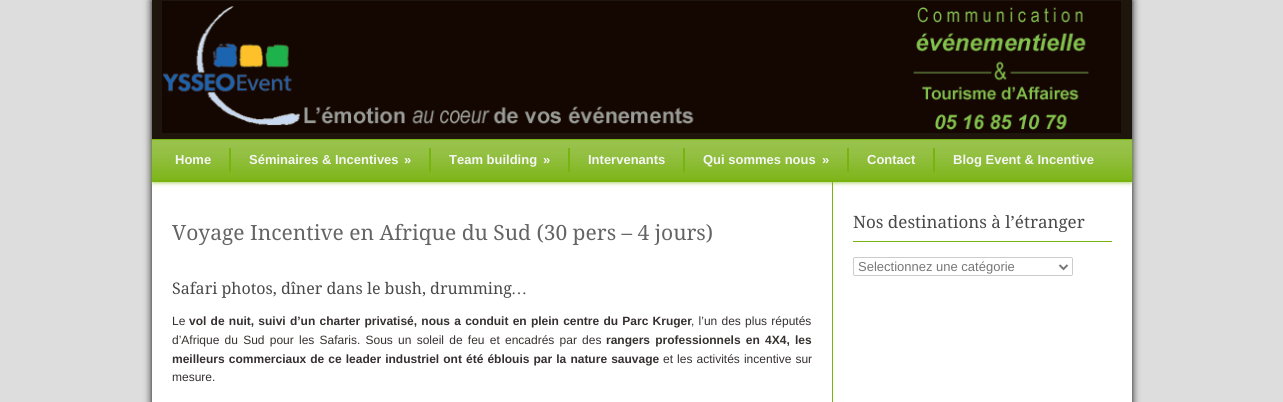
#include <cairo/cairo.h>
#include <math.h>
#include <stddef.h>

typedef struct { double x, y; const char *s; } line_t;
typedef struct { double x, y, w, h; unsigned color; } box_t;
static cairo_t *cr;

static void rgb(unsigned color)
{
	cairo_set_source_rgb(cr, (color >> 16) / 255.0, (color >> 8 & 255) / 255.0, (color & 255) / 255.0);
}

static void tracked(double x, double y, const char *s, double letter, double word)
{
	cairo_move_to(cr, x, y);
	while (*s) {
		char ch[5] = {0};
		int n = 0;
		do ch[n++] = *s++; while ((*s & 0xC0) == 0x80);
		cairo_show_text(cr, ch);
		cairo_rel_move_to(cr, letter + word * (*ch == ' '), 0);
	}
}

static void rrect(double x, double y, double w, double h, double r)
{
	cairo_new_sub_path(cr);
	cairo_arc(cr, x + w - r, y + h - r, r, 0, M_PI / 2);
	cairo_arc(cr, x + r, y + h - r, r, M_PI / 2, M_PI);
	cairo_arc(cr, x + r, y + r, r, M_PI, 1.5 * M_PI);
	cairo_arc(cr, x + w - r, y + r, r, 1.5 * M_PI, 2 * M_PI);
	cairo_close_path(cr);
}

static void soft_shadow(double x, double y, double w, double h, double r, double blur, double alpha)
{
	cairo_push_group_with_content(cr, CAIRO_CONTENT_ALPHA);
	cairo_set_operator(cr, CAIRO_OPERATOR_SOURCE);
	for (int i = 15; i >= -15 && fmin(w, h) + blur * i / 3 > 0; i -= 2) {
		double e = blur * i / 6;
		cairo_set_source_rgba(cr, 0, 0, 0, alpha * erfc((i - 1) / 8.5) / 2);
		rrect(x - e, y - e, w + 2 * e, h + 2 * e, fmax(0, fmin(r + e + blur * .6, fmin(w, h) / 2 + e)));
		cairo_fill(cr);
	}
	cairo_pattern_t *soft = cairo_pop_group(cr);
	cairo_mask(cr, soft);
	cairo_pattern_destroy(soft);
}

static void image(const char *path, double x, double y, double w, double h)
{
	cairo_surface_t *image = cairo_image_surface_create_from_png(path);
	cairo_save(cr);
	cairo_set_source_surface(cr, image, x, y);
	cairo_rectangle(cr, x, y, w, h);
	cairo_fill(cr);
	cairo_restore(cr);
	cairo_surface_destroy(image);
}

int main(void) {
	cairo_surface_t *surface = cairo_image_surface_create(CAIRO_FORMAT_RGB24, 1283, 402);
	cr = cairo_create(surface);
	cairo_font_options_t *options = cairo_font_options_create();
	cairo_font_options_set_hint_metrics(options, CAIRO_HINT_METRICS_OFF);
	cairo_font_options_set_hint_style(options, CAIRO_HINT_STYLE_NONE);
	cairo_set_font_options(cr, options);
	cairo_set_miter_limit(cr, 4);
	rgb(0xdddddd);
	cairo_paint(cr);
	rgb(0x050505);
	soft_shadow(152, 0, 980, 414, 0, 4, 1);
	rgb(0xffffff);
	cairo_rectangle(cr, 152, 182, 980, 220);
	cairo_fill(cr);
	rgb(0x89ba2d);
	soft_shadow(153, 141, 978, 41, 0, 2.5, 1);
	rgb(0x1e150d);
	cairo_rectangle(cr, 152, 0, 980, 139);
	cairo_fill(cr);
	image("img/1.png", 162, 1, 959, 132);
	rgb(0x79b30f);
	cairo_rectangle(cr, 152, 139, 980, 43);
	cairo_fill(cr);
	image("img/2.png", 152, 140, 980, 40);
	{
		static const box_t items[] = {
			{229, 148, 2, 24, 0x79b30f},
			{429, 148, 2, 24, 0x79b30f},
			{568, 148, 2, 24, 0x79b30f},
			{683, 148, 2, 24, 0x79b30f},
			{847, 148, 2, 24, 0x79b30f},
			{933, 148, 2, 24, 0x79b30f},
			{832, 182, 1, 220, 0x79b30f},
			{853, 241, 259, 1, 0x79b30f},
		};
		for (size_t i = 0; i < sizeof items / sizeof *items; i++) {
			rgb(items[i].color);
			cairo_rectangle(cr, items[i].x, items[i].y, items[i].w, items[i].h);
			cairo_fill(cr);
		}
	}
	rrect(853.5, 257.5, 219, 18, 1.5);
	rgb(0xcccccc);
	cairo_set_line_width(cr, 1);
	cairo_stroke(cr);
	cairo_new_path(cr);
	cairo_move_to(cr, 1059.5, 265);
	cairo_line_to(cr, 1063.5, 269);
	cairo_line_to(cr, 1067.5, 265);
	rgb(0x777777);
	cairo_set_line_width(cr, 2);
	cairo_stroke(cr);
	cairo_select_font_face(cr, "Liberation Sans", CAIRO_FONT_SLANT_NORMAL, CAIRO_FONT_WEIGHT_BOLD);
	cairo_set_font_size(cr, 13);
	rgb(0xf5f5f5);
	{
		static const line_t items[] = {
			{175, 164, "Home"},
			{249, 164, "Séminaires & Incentives"},
			{404, 164, "»"},
			{449, 164, "Team building"},
			{543, 164, "»"},
			{588, 164, "Intervenants"},
			{703, 164, "Qui sommes nous"},
			{822, 164, "»"},
			{867, 164, "Contact"},
			{953, 164, "Blog Event & Incentive"},
		};
		for (size_t i = 0; i < sizeof items / sizeof *items; i++) {
			cairo_move_to(cr, items[i].x, items[i].y);
			cairo_show_text(cr, items[i].s);
		}
	}
	cairo_select_font_face(cr, "Droid Serif", CAIRO_FONT_SLANT_NORMAL, CAIRO_FONT_WEIGHT_NORMAL);
	cairo_set_font_size(cr, 21);
	rgb(0x646464);
	cairo_move_to(cr, 172, 240);
	cairo_show_text(cr, "Voyage Incentive en Afrique du Sud (30 pers – 4 jours)");
	cairo_set_font_size(cr, 16);
	rgb(0x494949);
	cairo_move_to(cr, 172, 294);
	cairo_show_text(cr, "Safari photos, dîner dans le bush, drumming");
	cairo_select_font_face(cr, "Liberation Serif", CAIRO_FONT_SLANT_NORMAL, CAIRO_FONT_WEIGHT_NORMAL);
	cairo_move_to(cr, 511, 294);
	cairo_show_text(cr, "…");
	cairo_select_font_face(cr, "Liberation Sans", CAIRO_FONT_SLANT_NORMAL, CAIRO_FONT_WEIGHT_NORMAL);
	cairo_set_font_size(cr, 12);
	rgb(0x363030);
	cairo_move_to(cr, 172, 325);
	cairo_show_text(cr, "Le");
	cairo_select_font_face(cr, "Liberation Sans", CAIRO_FONT_SLANT_NORMAL, CAIRO_FONT_WEIGHT_BOLD);
	tracked(189, 325, "vol de nuit, suivi d’un charter privatisé, nous a conduit en plein centre du Parc Kruger", 0, 0.9);
	cairo_select_font_face(cr, "Liberation Sans", CAIRO_FONT_SLANT_NORMAL, CAIRO_FONT_WEIGHT_NORMAL);
	tracked(691, 325, ", l’un des plus réputés", 0, 0.9);
	tracked(172, 344, "d’Afrique du Sud pour les Safaris. Sous un soleil de feu et encadrés par des", 0, 1.9);
	cairo_select_font_face(cr, "Liberation Sans", CAIRO_FONT_SLANT_NORMAL, CAIRO_FONT_WEIGHT_BOLD);
	tracked(606, 344, "rangers professionnels en 4X4, les", 0, 1.9);
	tracked(172, 363, "meilleurs commerciaux de ce leader industriel ont été éblouis par la nature sauvage", 0, 0.75);
	cairo_select_font_face(cr, "Liberation Sans", CAIRO_FONT_SLANT_NORMAL, CAIRO_FONT_WEIGHT_NORMAL);
	tracked(663, 363, "et les activités incentive sur", 0, 0.75);
	cairo_move_to(cr, 172, 381);
	cairo_show_text(cr, "mesure.");
	cairo_select_font_face(cr, "Droid Serif", CAIRO_FONT_SLANT_NORMAL, CAIRO_FONT_WEIGHT_NORMAL);
	cairo_set_font_size(cr, 17);
	rgb(0x494949);
	cairo_move_to(cr, 853, 228);
	cairo_show_text(cr, "Nos destinations à l’étranger");
	cairo_select_font_face(cr, "Liberation Sans", CAIRO_FONT_SLANT_NORMAL, CAIRO_FONT_WEIGHT_NORMAL);
	cairo_set_font_size(cr, 13);
	rgb(0x777777);
	cairo_move_to(cr, 858, 271);
	cairo_show_text(cr, "Selectionnez une catégorie");
	cairo_surface_write_to_png(surface, "page.png");
	cairo_font_options_destroy(options);
	cairo_destroy(cr);
	cairo_surface_destroy(surface);
	return 0;
}
